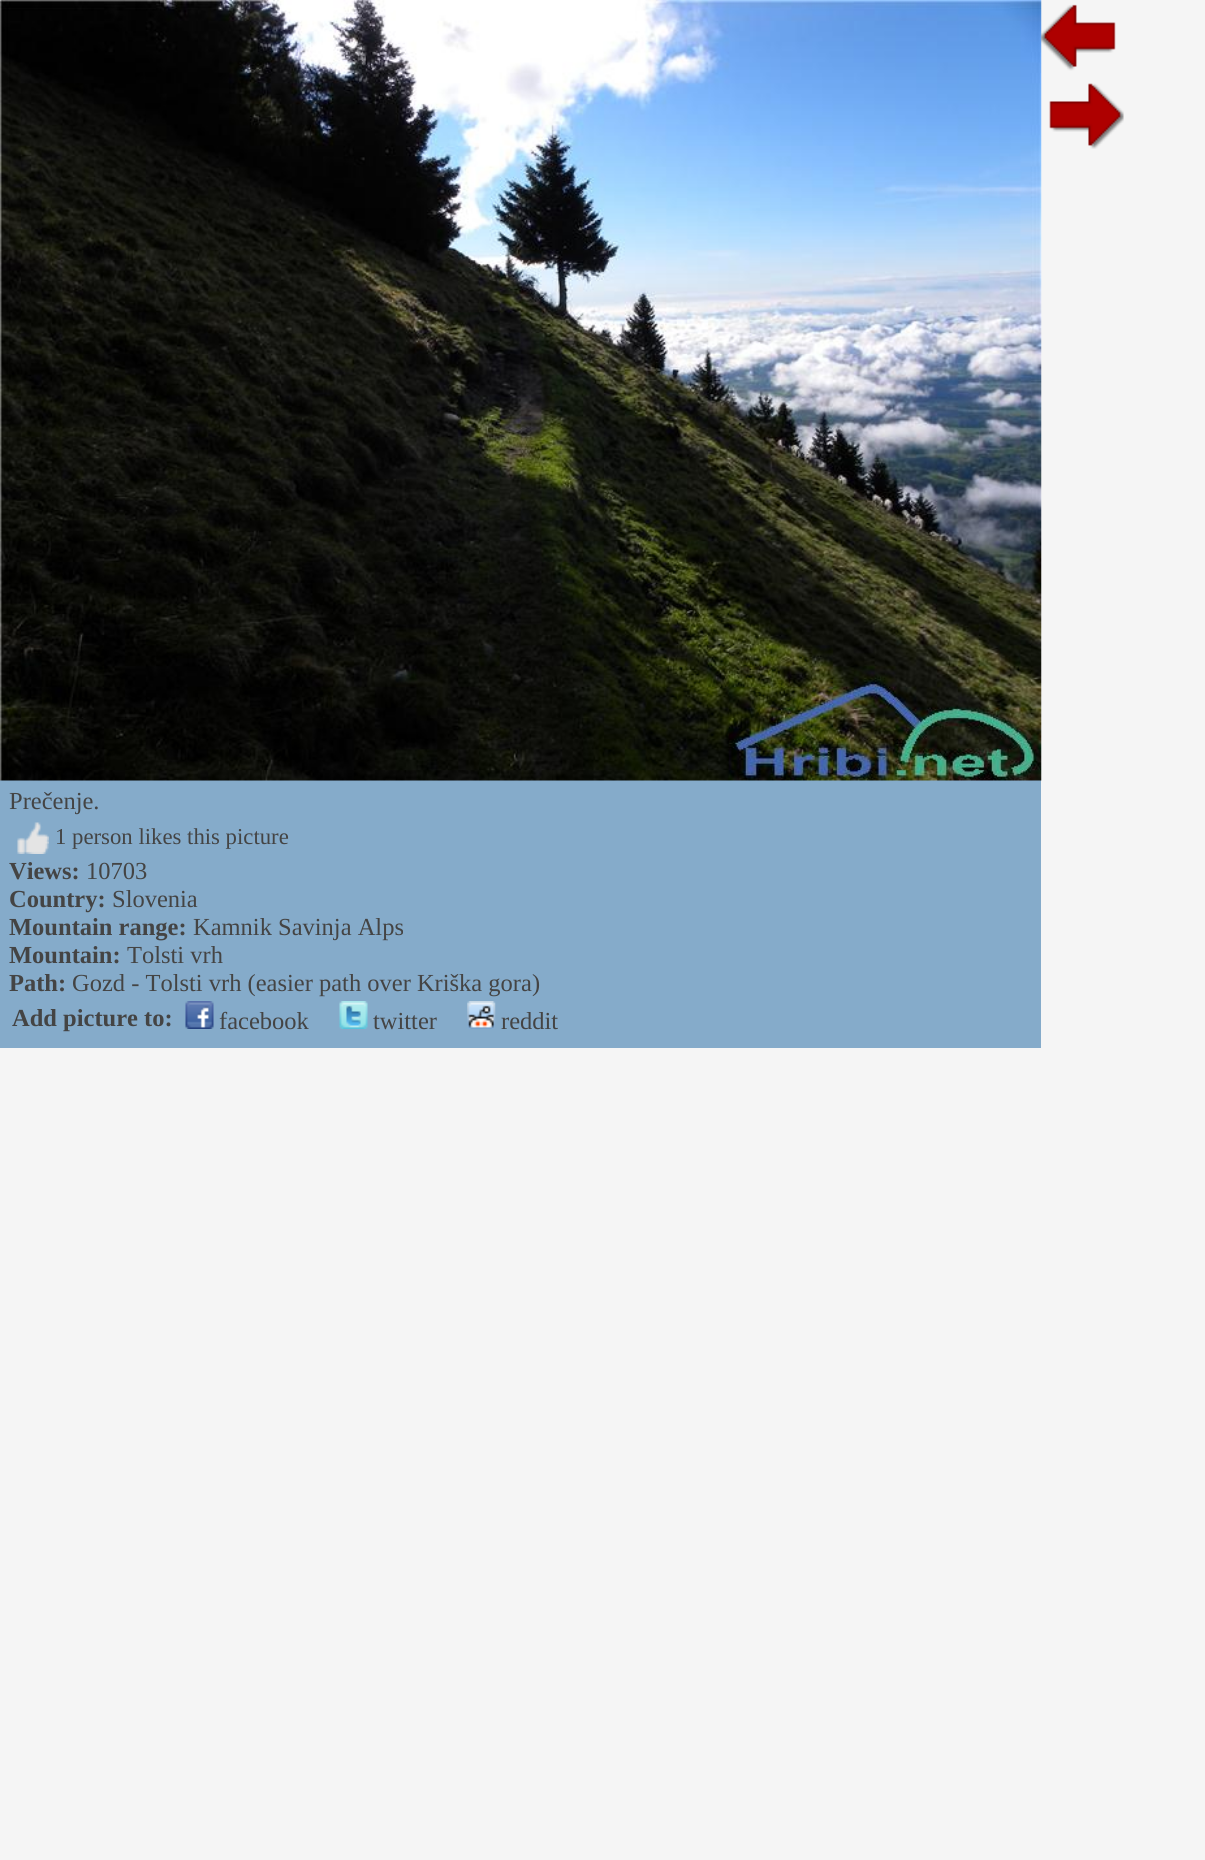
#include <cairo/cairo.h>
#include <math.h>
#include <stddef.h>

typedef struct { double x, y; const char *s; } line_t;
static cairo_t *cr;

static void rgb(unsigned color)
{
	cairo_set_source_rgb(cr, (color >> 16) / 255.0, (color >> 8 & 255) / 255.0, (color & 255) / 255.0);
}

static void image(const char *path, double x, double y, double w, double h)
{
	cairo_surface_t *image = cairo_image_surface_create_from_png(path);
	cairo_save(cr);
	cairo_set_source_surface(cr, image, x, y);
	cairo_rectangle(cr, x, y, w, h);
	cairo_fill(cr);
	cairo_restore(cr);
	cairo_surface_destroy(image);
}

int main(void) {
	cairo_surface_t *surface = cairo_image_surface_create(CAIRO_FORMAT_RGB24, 1205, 1860);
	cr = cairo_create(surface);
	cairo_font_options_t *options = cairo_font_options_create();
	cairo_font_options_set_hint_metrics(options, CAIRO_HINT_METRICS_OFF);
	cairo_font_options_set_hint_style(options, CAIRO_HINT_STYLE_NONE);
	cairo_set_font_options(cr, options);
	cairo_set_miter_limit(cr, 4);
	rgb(0xf5f5f5);
	cairo_paint(cr);
	rgb(0x85abca);
	cairo_rectangle(cr, 0, 780, 1041, 268);
	cairo_fill(cr);
	image("img/3.png", 0, 0, 1042, 781);
	image("img/1.png", 1041, 4, 75, 67);
	image("img/2.png", 1049, 83, 75, 66);
	image("img/4.png", 17, 822, 32, 32);
	image("img/5.png", 185, 1001, 29, 28);
	image("img/6.png", 339, 1001, 29, 28);
	image("img/7.png", 467, 1001, 29, 28);
	cairo_select_font_face(cr, "Liberation Serif", CAIRO_FONT_SLANT_NORMAL, CAIRO_FONT_WEIGHT_NORMAL);
	cairo_set_font_size(cr, 24.5);
	rgb(0x444444);
	cairo_move_to(cr, 9, 809);
	cairo_show_text(cr, "Prečenje.");
	cairo_set_font_size(cr, 22.75);
	cairo_move_to(cr, 55, 844);
	cairo_show_text(cr, "1 person likes this picture");
	cairo_select_font_face(cr, "Liberation Serif", CAIRO_FONT_SLANT_NORMAL, CAIRO_FONT_WEIGHT_BOLD);
	cairo_set_font_size(cr, 24.5);
	cairo_move_to(cr, 9, 879);
	cairo_show_text(cr, "Views:");
	cairo_select_font_face(cr, "Liberation Serif", CAIRO_FONT_SLANT_NORMAL, CAIRO_FONT_WEIGHT_NORMAL);
	cairo_move_to(cr, 86, 879);
	cairo_show_text(cr, "10703");
	cairo_select_font_face(cr, "Liberation Serif", CAIRO_FONT_SLANT_NORMAL, CAIRO_FONT_WEIGHT_BOLD);
	cairo_move_to(cr, 9, 907);
	cairo_show_text(cr, "Country:");
	cairo_select_font_face(cr, "Liberation Serif", CAIRO_FONT_SLANT_NORMAL, CAIRO_FONT_WEIGHT_NORMAL);
	cairo_move_to(cr, 112, 907);
	cairo_show_text(cr, "Slovenia");
	cairo_select_font_face(cr, "Liberation Serif", CAIRO_FONT_SLANT_NORMAL, CAIRO_FONT_WEIGHT_BOLD);
	cairo_move_to(cr, 9, 935);
	cairo_show_text(cr, "Mountain range:");
	cairo_select_font_face(cr, "Liberation Serif", CAIRO_FONT_SLANT_NORMAL, CAIRO_FONT_WEIGHT_NORMAL);
	cairo_move_to(cr, 193, 935);
	cairo_show_text(cr, "Kamnik Savinja Alps");
	cairo_select_font_face(cr, "Liberation Serif", CAIRO_FONT_SLANT_NORMAL, CAIRO_FONT_WEIGHT_BOLD);
	cairo_move_to(cr, 9, 963);
	cairo_show_text(cr, "Mountain:");
	cairo_select_font_face(cr, "Liberation Serif", CAIRO_FONT_SLANT_NORMAL, CAIRO_FONT_WEIGHT_NORMAL);
	cairo_move_to(cr, 127, 963);
	cairo_show_text(cr, "Tolsti vrh");
	cairo_select_font_face(cr, "Liberation Serif", CAIRO_FONT_SLANT_NORMAL, CAIRO_FONT_WEIGHT_BOLD);
	cairo_move_to(cr, 9, 991);
	cairo_show_text(cr, "Path:");
	cairo_select_font_face(cr, "Liberation Serif", CAIRO_FONT_SLANT_NORMAL, CAIRO_FONT_WEIGHT_NORMAL);
	cairo_move_to(cr, 72, 991);
	cairo_show_text(cr, "Gozd - Tolsti vrh (easier path over Kriška gora)");
	cairo_select_font_face(cr, "Liberation Serif", CAIRO_FONT_SLANT_NORMAL, CAIRO_FONT_WEIGHT_BOLD);
	cairo_move_to(cr, 12, 1026);
	cairo_show_text(cr, "Add picture to:");
	cairo_select_font_face(cr, "Liberation Serif", CAIRO_FONT_SLANT_NORMAL, CAIRO_FONT_WEIGHT_NORMAL);
	{
		static const line_t items[] = {
			{219, 1029, "facebook"},
			{373, 1029, "twitter"},
			{501, 1029, "reddit"},
		};
		for (size_t i = 0; i < sizeof items / sizeof *items; i++) {
			cairo_move_to(cr, items[i].x, items[i].y);
			cairo_show_text(cr, items[i].s);
		}
	}
	cairo_surface_write_to_png(surface, "page.png");
	cairo_font_options_destroy(options);
	cairo_destroy(cr);
	cairo_surface_destroy(surface);
	return 0;
}
